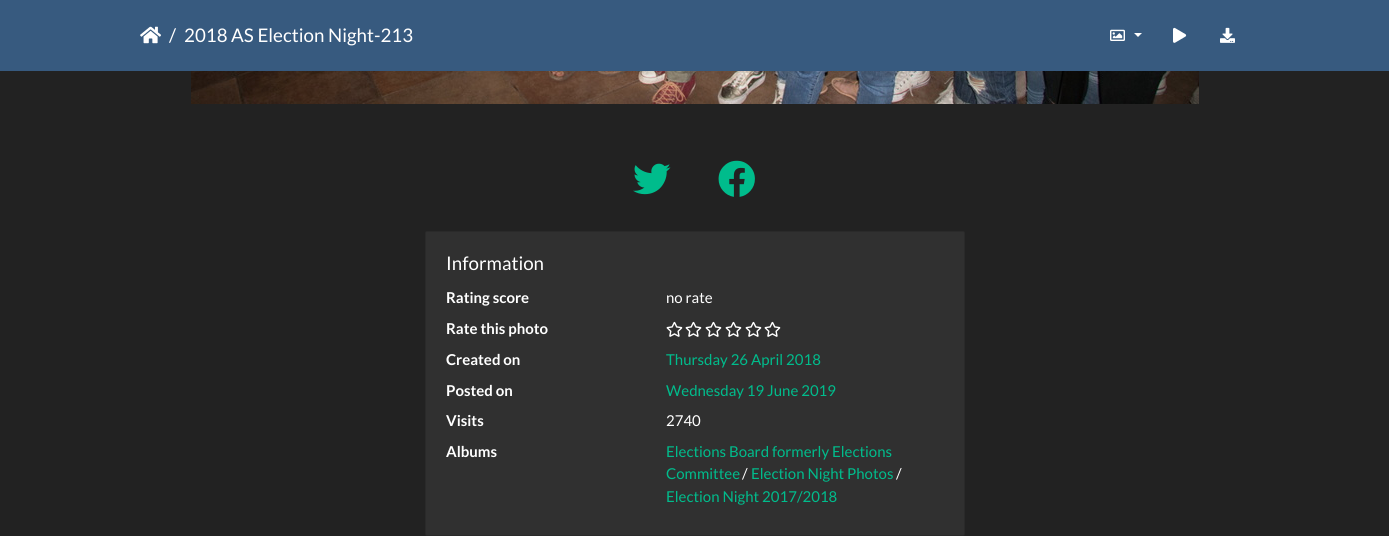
#include <cairo/cairo.h>
#include <math.h>
#include <stddef.h>

typedef struct { double x, y; const char *s; } line_t;
static cairo_t *cr;

static void rgb(unsigned color)
{
	cairo_set_source_rgb(cr, (color >> 16) / 255.0, (color >> 8 & 255) / 255.0, (color & 255) / 255.0);
}

static void rrect(double x, double y, double w, double h, double r)
{
	cairo_new_sub_path(cr);
	cairo_arc(cr, x + w - r, y + h - r, r, 0, M_PI / 2);
	cairo_arc(cr, x + r, y + h - r, r, M_PI / 2, M_PI);
	cairo_arc(cr, x + r, y + r, r, M_PI, 1.5 * M_PI);
	cairo_arc(cr, x + w - r, y + r, r, 1.5 * M_PI, 2 * M_PI);
	cairo_close_path(cr);
}

static void image(const char *path, double x, double y, double w, double h)
{
	cairo_surface_t *image = cairo_image_surface_create_from_png(path);
	cairo_save(cr);
	cairo_set_source_surface(cr, image, x, y);
	cairo_rectangle(cr, x, y, w, h);
	cairo_fill(cr);
	cairo_restore(cr);
	cairo_surface_destroy(image);
}

int main(void) {
	cairo_surface_t *surface = cairo_image_surface_create(CAIRO_FORMAT_RGB24, 1389, 536);
	cr = cairo_create(surface);
	cairo_font_options_t *options = cairo_font_options_create();
	cairo_font_options_set_hint_metrics(options, CAIRO_HINT_METRICS_OFF);
	cairo_font_options_set_hint_style(options, CAIRO_HINT_STYLE_NONE);
	cairo_set_font_options(cr, options);
	cairo_set_miter_limit(cr, 4);
	rgb(0x222222);
	cairo_paint(cr);
	rgb(0x375a7f);
	cairo_rectangle(cr, 0, 0, 1389, 71);
	cairo_fill(cr);
	image("img/1.png", 140, 26, 21, 18);
	image("img/2.png", 1110, 29, 15, 12);
	rgb(0xffffff);
	cairo_new_path(cr);
	cairo_move_to(cr, 1134, 33);
	cairo_line_to(cr, 1142, 33);
	cairo_line_to(cr, 1138, 37);
	cairo_close_path(cr);
	cairo_fill(cr);
	image("img/3.png", 1173, 27, 14, 16);
	image("img/4.png", 1220, 27, 15, 16);
	image("img/5.png", 191, 71, 1008, 33);
	image("img/6.png", 633, 163, 38, 32);
	image("img/7.png", 718, 160, 37, 37);
	rgb(0x303030);
	rrect(425.5, 231.5, 539, 304, 1.5);
	cairo_fill_preserve(cr);
	rgb(0x2a2a2a);
	cairo_set_line_width(cr, 1);
	cairo_stroke(cr);
	image("img/8.png", 666, 321, 17, 16);
	image("img/8.png", 685, 321, 17, 16);
	image("img/8.png", 705, 321, 17, 16);
	image("img/8.png", 725, 321, 17, 16);
	image("img/8.png", 745, 321, 17, 16);
	image("img/8.png", 764, 321, 17, 16);
	cairo_select_font_face(cr, "Lato", CAIRO_FONT_SLANT_NORMAL, CAIRO_FONT_WEIGHT_NORMAL);
	cairo_set_font_size(cr, 18.75);
	rgb(0xffffff);
	{
		static const line_t items[] = {
			{169, 42, "/"},
			{184, 42, "2018 AS Election Night-213"},
			{446, 270, "Information"},
		};
		for (size_t i = 0; i < sizeof items / sizeof *items; i++) {
			cairo_move_to(cr, items[i].x, items[i].y);
			cairo_show_text(cr, items[i].s);
		}
	}
	cairo_select_font_face(cr, "Lato", CAIRO_FONT_SLANT_NORMAL, CAIRO_FONT_WEIGHT_BOLD);
	cairo_set_font_size(cr, 15);
	cairo_move_to(cr, 446, 303);
	cairo_show_text(cr, "Rating score");
	cairo_select_font_face(cr, "Lato", CAIRO_FONT_SLANT_NORMAL, CAIRO_FONT_WEIGHT_NORMAL);
	cairo_move_to(cr, 666, 303);
	cairo_show_text(cr, "no rate");
	cairo_select_font_face(cr, "Lato", CAIRO_FONT_SLANT_NORMAL, CAIRO_FONT_WEIGHT_BOLD);
	cairo_move_to(cr, 446, 334);
	cairo_show_text(cr, "Rate this photo");
	cairo_move_to(cr, 446, 365);
	cairo_show_text(cr, "Created on");
	cairo_select_font_face(cr, "Lato", CAIRO_FONT_SLANT_NORMAL, CAIRO_FONT_WEIGHT_NORMAL);
	rgb(0x00bc8c);
	cairo_move_to(cr, 666, 365);
	cairo_show_text(cr, "Thursday 26 April 2018");
	cairo_select_font_face(cr, "Lato", CAIRO_FONT_SLANT_NORMAL, CAIRO_FONT_WEIGHT_BOLD);
	rgb(0xffffff);
	cairo_move_to(cr, 446, 396);
	cairo_show_text(cr, "Posted on");
	cairo_select_font_face(cr, "Lato", CAIRO_FONT_SLANT_NORMAL, CAIRO_FONT_WEIGHT_NORMAL);
	rgb(0x00bc8c);
	cairo_move_to(cr, 666, 396);
	cairo_show_text(cr, "Wednesday 19 June 2019");
	cairo_select_font_face(cr, "Lato", CAIRO_FONT_SLANT_NORMAL, CAIRO_FONT_WEIGHT_BOLD);
	rgb(0xffffff);
	cairo_move_to(cr, 446, 426);
	cairo_show_text(cr, "Visits");
	cairo_select_font_face(cr, "Lato", CAIRO_FONT_SLANT_NORMAL, CAIRO_FONT_WEIGHT_NORMAL);
	cairo_move_to(cr, 666, 426);
	cairo_show_text(cr, "2740");
	cairo_select_font_face(cr, "Lato", CAIRO_FONT_SLANT_NORMAL, CAIRO_FONT_WEIGHT_BOLD);
	cairo_move_to(cr, 446, 457);
	cairo_show_text(cr, "Albums");
	cairo_select_font_face(cr, "Lato", CAIRO_FONT_SLANT_NORMAL, CAIRO_FONT_WEIGHT_NORMAL);
	rgb(0x00bc8c);
	cairo_move_to(cr, 666, 457);
	cairo_show_text(cr, "Elections Board formerly Elections");
	cairo_move_to(cr, 666, 479);
	cairo_show_text(cr, "Committee");
	rgb(0xffffff);
	cairo_move_to(cr, 742, 479);
	cairo_show_text(cr, "/");
	rgb(0x00bc8c);
	cairo_move_to(cr, 751, 479);
	cairo_show_text(cr, "Election Night Photos");
	rgb(0xffffff);
	cairo_move_to(cr, 896, 479);
	cairo_show_text(cr, "/");
	rgb(0x00bc8c);
	cairo_move_to(cr, 666, 502);
	cairo_show_text(cr, "Election Night 2017/2018");
	cairo_surface_write_to_png(surface, "page.png");
	cairo_font_options_destroy(options);
	cairo_destroy(cr);
	cairo_surface_destroy(surface);
	return 0;
}
